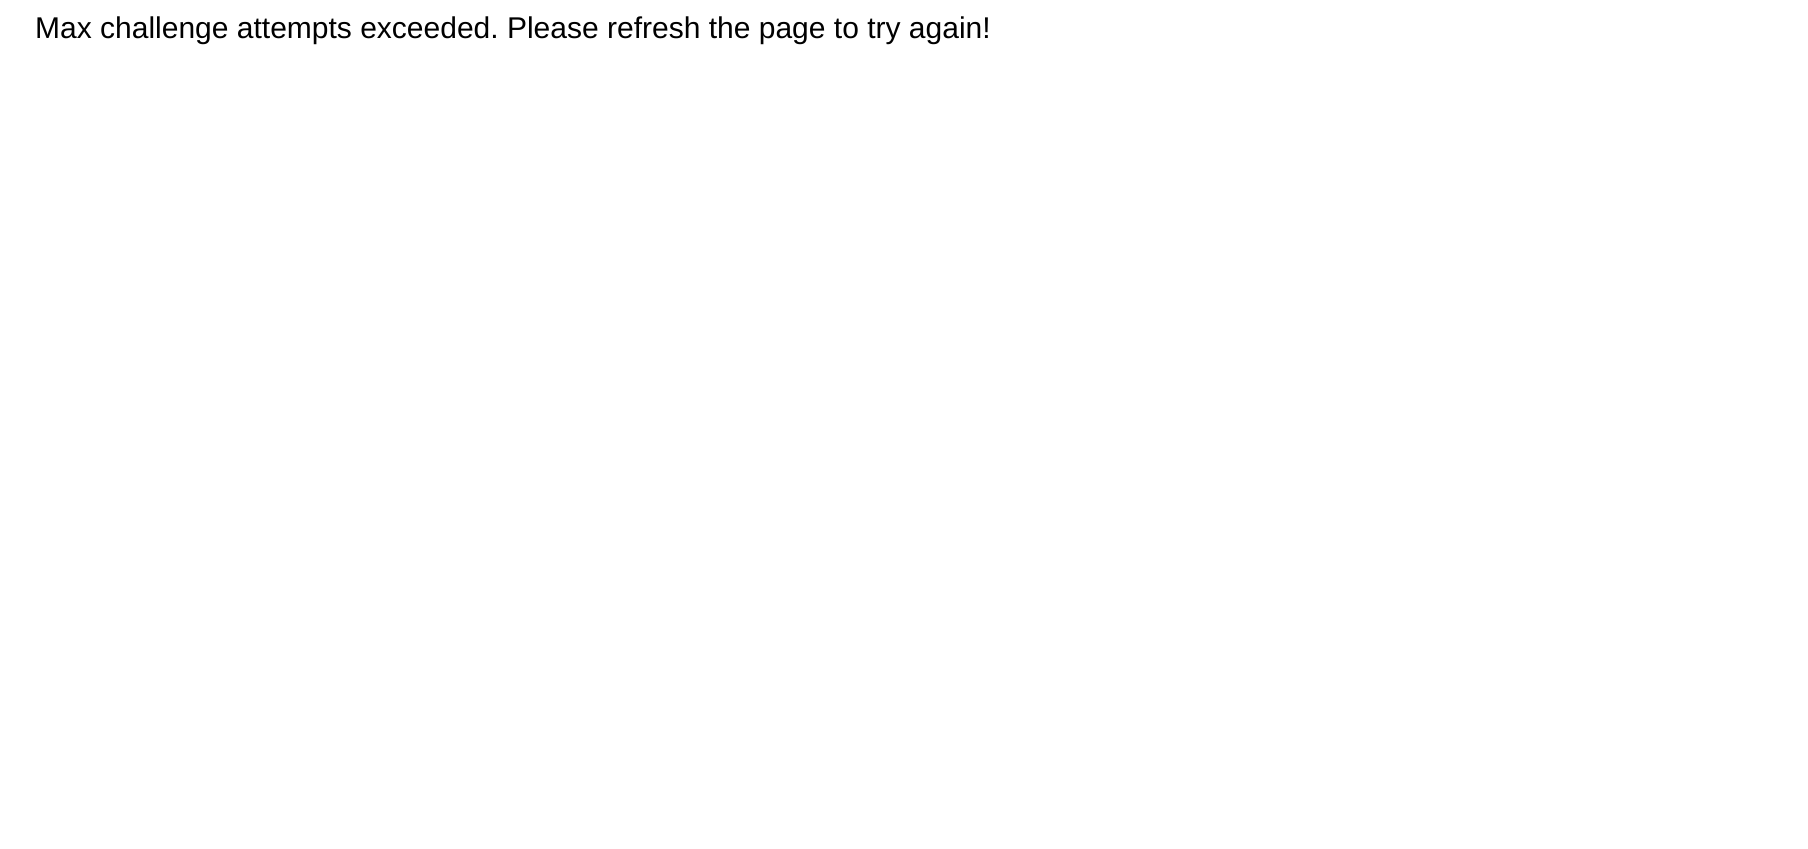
#include <cairo/cairo.h>
#include <math.h>
#include <stddef.h>

static cairo_t *cr;

static void rgb(unsigned color)
{
	cairo_set_source_rgb(cr, (color >> 16) / 255.0, (color >> 8 & 255) / 255.0, (color & 255) / 255.0);
}

int main(void) {
	cairo_surface_t *surface = cairo_image_surface_create(CAIRO_FORMAT_RGB24, 1808, 849);
	cr = cairo_create(surface);
	cairo_font_options_t *options = cairo_font_options_create();
	cairo_font_options_set_hint_metrics(options, CAIRO_HINT_METRICS_OFF);
	cairo_font_options_set_hint_style(options, CAIRO_HINT_STYLE_NONE);
	cairo_set_font_options(cr, options);
	cairo_set_miter_limit(cr, 4);
	rgb(0xffffff);
	cairo_paint(cr);
	cairo_select_font_face(cr, "Liberation Sans", CAIRO_FONT_SLANT_NORMAL, CAIRO_FONT_WEIGHT_NORMAL);
	cairo_set_font_size(cr, 30);
	rgb(0x000000);
	cairo_move_to(cr, 35, 38);
	cairo_show_text(cr, "Max challenge attempts exceeded. Please refresh the page to try again!");
	cairo_surface_write_to_png(surface, "page.png");
	cairo_font_options_destroy(options);
	cairo_destroy(cr);
	cairo_surface_destroy(surface);
	return 0;
}
